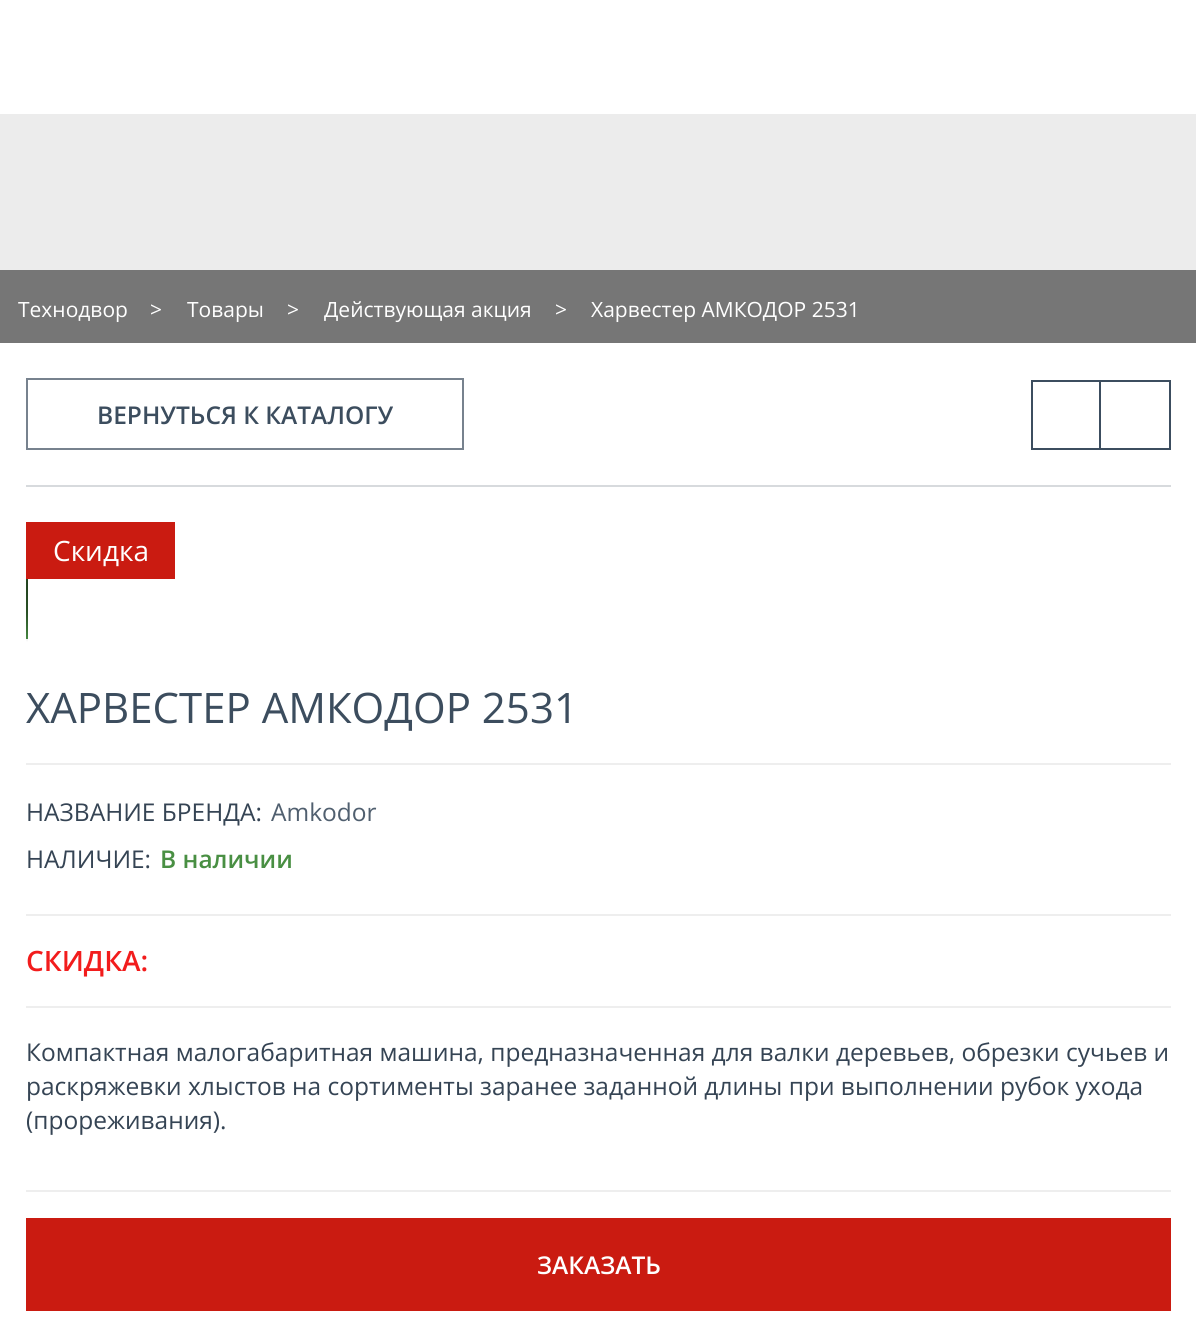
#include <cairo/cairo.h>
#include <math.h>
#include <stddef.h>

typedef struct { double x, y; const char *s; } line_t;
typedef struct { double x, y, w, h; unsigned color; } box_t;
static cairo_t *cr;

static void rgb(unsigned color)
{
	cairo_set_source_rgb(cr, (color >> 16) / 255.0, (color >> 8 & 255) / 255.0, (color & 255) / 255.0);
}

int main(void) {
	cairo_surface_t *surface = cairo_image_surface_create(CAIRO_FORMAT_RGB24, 1196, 1344);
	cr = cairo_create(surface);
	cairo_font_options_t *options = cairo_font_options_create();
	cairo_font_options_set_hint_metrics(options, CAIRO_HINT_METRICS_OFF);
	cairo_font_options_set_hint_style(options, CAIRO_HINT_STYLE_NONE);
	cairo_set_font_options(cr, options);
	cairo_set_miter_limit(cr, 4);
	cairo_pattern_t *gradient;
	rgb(0xffffff);
	cairo_paint(cr);
	{
		static const box_t items[] = {
			{0, 114, 1196, 156, 0xececec},
			{0, 270, 1196, 73, 0x767676},
			{26, 485, 1145, 2, 0xd7dadd},
		};
		for (size_t i = 0; i < sizeof items / sizeof *items; i++) {
			rgb(items[i].color);
			cairo_rectangle(cr, items[i].x, items[i].y, items[i].w, items[i].h);
			cairo_fill(cr);
		}
	}
	cairo_rectangle(cr, 27, 379, 436, 70);
	rgb(0x77828e);
	cairo_stroke(cr);
	cairo_rectangle(cr, 1032, 381, 68, 68);
	rgb(0x3c4d5f);
	cairo_stroke(cr);
	{
		static const box_t items[] = {
			{1101, 380, 70, 2, 0x3c4d5f},
			{1169, 380, 2, 70, 0x3c4d5f},
			{1101, 448, 70, 2, 0x3c4d5f},
		};
		for (size_t i = 0; i < sizeof items / sizeof *items; i++) {
			rgb(items[i].color);
			cairo_rectangle(cr, items[i].x, items[i].y, items[i].w, items[i].h);
			cairo_fill(cr);
		}
	}
	cairo_save(cr);
	cairo_rectangle(cr, 26, 523, 2, 119);
	cairo_clip(cr);
	cairo_rectangle(cr, 28, 529, 189, 108);
	rgb(0x498f43);
	cairo_set_line_width(cr, 4);
	cairo_stroke(cr);
	cairo_restore(cr);
	gradient = cairo_pattern_create_radial(0, 0, 0, 0, 0, 1);
	cairo_pattern_set_matrix(gradient, &(cairo_matrix_t){1.0 / 9, 0, 0, 1.0 / 60, -1.0 * 28 / 9, -1.0 * 583 / 60});
	cairo_pattern_add_color_stop_rgba(gradient, 0, 0, 0, 0, 0.4);
	cairo_pattern_add_color_stop_rgba(gradient, 1, 0, 0, 0, 0);
	cairo_set_source(cr, gradient);
	cairo_pattern_destroy(gradient);
	cairo_rectangle(cr, 26, 579, 2, 63);
	cairo_fill(cr);
	gradient = cairo_pattern_create_linear(27, 523, 27, 642);
	cairo_pattern_add_color_stop_rgba(gradient, 0, 0, 0, 0, 0);
	cairo_pattern_add_color_stop_rgba(gradient, 0.25, 0, 0, 0, 0.2);
	cairo_pattern_add_color_stop_rgba(gradient, 0.75, 0, 0, 0, 0.3);
	cairo_pattern_add_color_stop_rgba(gradient, 1, 0, 0, 0, 0);
	cairo_set_source(cr, gradient);
	cairo_pattern_destroy(gradient);
	cairo_rectangle(cr, 26, 579, 2, 63);
	cairo_fill(cr);
	{
		static const box_t items[] = {
			{26, 522, 149, 57, 0xca1b11},
			{26, 763, 1145, 2, 0xeeeeee},
			{26, 914, 1145, 2, 0xeeeeee},
			{26, 1006, 1145, 2, 0xeeeeee},
			{26, 1190, 1145, 2, 0xeeeeee},
			{26, 1218, 1145, 93, 0xca1b11},
		};
		for (size_t i = 0; i < sizeof items / sizeof *items; i++) {
			rgb(items[i].color);
			cairo_rectangle(cr, items[i].x, items[i].y, items[i].w, items[i].h);
			cairo_fill(cr);
		}
	}
	cairo_select_font_face(cr, "Open Sans", CAIRO_FONT_SLANT_NORMAL, CAIRO_FONT_WEIGHT_NORMAL);
	cairo_set_font_size(cr, 21);
	rgb(0xffffff);
	{
		static const line_t items[] = {
			{18, 317, "Технодвор"},
			{150, 317, ">"},
			{187, 317, "Товары"},
			{287, 317, ">"},
			{324, 317, "Действующая акция"},
			{555, 317, ">"},
			{591, 317, "Харвестер АМКОДОР 2531"},
		};
		for (size_t i = 0; i < sizeof items / sizeof *items; i++) {
			cairo_move_to(cr, items[i].x, items[i].y);
			cairo_show_text(cr, items[i].s);
		}
	}
	cairo_select_font_face(cr, "Open Sans SemiBold", CAIRO_FONT_SLANT_NORMAL, CAIRO_FONT_WEIGHT_NORMAL);
	cairo_set_font_size(cr, 24.5);
	rgb(0x3c4d5e);
	cairo_move_to(cr, 97, 424);
	cairo_show_text(cr, "ВЕРНУТЬСЯ К КАТАЛОГУ");
	cairo_select_font_face(cr, "Open Sans", CAIRO_FONT_SLANT_NORMAL, CAIRO_FONT_WEIGHT_NORMAL);
	cairo_set_font_size(cr, 28);
	rgb(0xffffff);
	cairo_move_to(cr, 53, 561);
	cairo_show_text(cr, "Скидка");
	cairo_set_font_size(cr, 42);
	rgb(0x3c4d5e);
	cairo_move_to(cr, 26, 723);
	cairo_show_text(cr, "ХАРВЕСТЕР АМКОДОР 2531");
	cairo_set_font_size(cr, 24.5);
	rgb(0x354454);
	cairo_move_to(cr, 26, 821);
	cairo_show_text(cr, "НАЗВАНИЕ БРЕНДА:");
	rgb(0x505f6f);
	cairo_move_to(cr, 271, 821);
	cairo_show_text(cr, "Amkodor");
	rgb(0x354454);
	cairo_move_to(cr, 26, 868);
	cairo_show_text(cr, "НАЛИЧИЕ:");
	cairo_select_font_face(cr, "Open Sans SemiBold", CAIRO_FONT_SLANT_NORMAL, CAIRO_FONT_WEIGHT_NORMAL);
	rgb(0x498f43);
	cairo_move_to(cr, 160, 868);
	cairo_show_text(cr, "В наличии");
	cairo_set_font_size(cr, 28);
	rgb(0xf21c1c);
	cairo_move_to(cr, 26, 971);
	cairo_show_text(cr, "СКИДКА:");
	cairo_select_font_face(cr, "Open Sans", CAIRO_FONT_SLANT_NORMAL, CAIRO_FONT_WEIGHT_NORMAL);
	cairo_set_font_size(cr, 24.5);
	rgb(0x354454);
	{
		static const line_t items[] = {
			{26, 1061, "Компактная малогабаритная машина, предназначенная для валки деревьев, обрезки сучьев и"},
			{26, 1095, "раскряжевки хлыстов на сортименты заранее заданной длины при выполнении рубок ухода"},
			{26, 1129, "(прореживания)."},
		};
		for (size_t i = 0; i < sizeof items / sizeof *items; i++) {
			cairo_move_to(cr, items[i].x, items[i].y);
			cairo_show_text(cr, items[i].s);
		}
	}
	cairo_select_font_face(cr, "Open Sans SemiBold", CAIRO_FONT_SLANT_NORMAL, CAIRO_FONT_WEIGHT_NORMAL);
	rgb(0xffffff);
	cairo_move_to(cr, 537, 1274);
	cairo_show_text(cr, "ЗАКАЗАТЬ");
	cairo_surface_write_to_png(surface, "page.png");
	cairo_font_options_destroy(options);
	cairo_destroy(cr);
	cairo_surface_destroy(surface);
	return 0;
}
